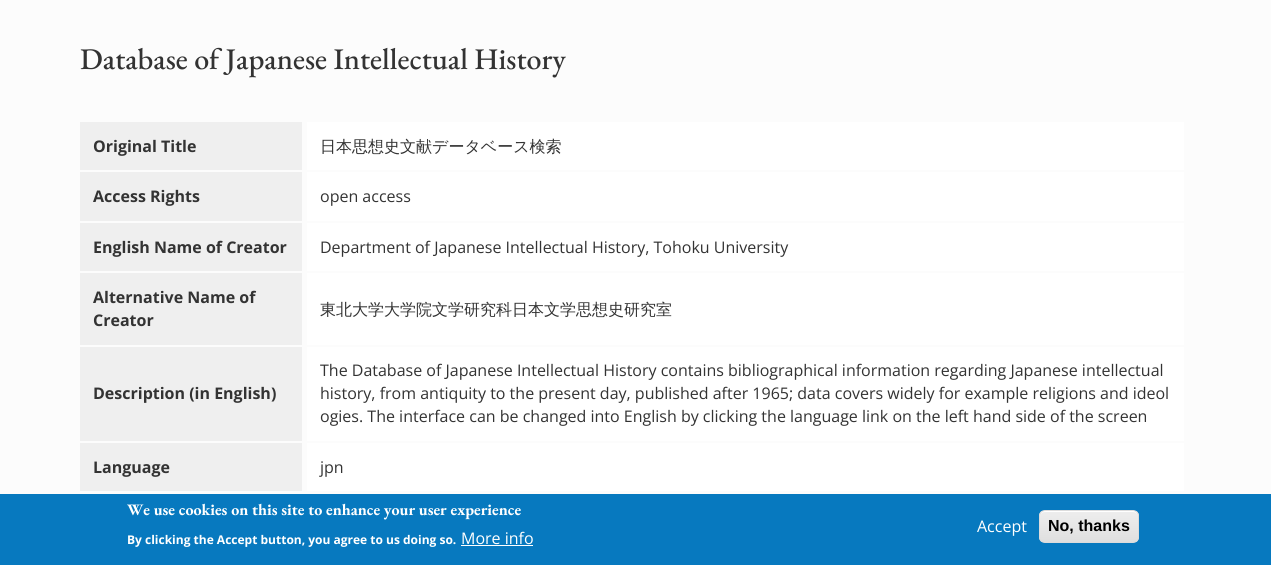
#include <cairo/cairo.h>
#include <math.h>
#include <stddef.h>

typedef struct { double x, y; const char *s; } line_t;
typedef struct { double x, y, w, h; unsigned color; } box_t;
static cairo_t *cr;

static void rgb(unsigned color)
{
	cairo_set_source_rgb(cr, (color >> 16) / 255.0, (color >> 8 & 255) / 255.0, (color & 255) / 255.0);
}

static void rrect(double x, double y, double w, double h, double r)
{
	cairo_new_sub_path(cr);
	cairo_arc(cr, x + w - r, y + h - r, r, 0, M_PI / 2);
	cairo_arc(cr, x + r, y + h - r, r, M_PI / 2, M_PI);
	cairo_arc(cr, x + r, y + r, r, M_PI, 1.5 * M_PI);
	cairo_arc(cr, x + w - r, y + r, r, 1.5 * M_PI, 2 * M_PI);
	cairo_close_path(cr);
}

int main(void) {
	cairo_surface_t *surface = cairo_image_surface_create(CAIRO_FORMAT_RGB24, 1271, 565);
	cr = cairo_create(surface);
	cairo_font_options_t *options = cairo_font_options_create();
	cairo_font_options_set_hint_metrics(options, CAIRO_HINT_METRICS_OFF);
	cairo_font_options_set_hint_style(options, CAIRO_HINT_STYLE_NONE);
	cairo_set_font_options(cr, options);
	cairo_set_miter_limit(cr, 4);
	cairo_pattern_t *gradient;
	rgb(0xfcfcfc);
	cairo_paint(cr);
	{
		static const box_t items[] = {
			{80, 122, 222, 48, 0xefefef},
			{307, 122, 877, 48, 0xffffff},
			{80, 172, 222, 49, 0xefefef},
			{307, 172, 877, 49, 0xffffff},
			{80, 223, 222, 48, 0xefefef},
			{307, 223, 877, 48, 0xffffff},
			{80, 273, 222, 72, 0xefefef},
			{307, 273, 877, 72, 0xffffff},
			{80, 347, 222, 94, 0xefefef},
			{307, 347, 877, 94, 0xffffff},
			{80, 443, 222, 48, 0xefefef},
			{307, 443, 877, 48, 0xffffff},
			{0, 494, 1271, 71, 0x0779bf},
			{461, 545, 72, 1, 0xffffff},
		};
		for (size_t i = 0; i < sizeof items / sizeof *items; i++) {
			rgb(items[i].color);
			cairo_rectangle(cr, items[i].x, items[i].y, items[i].w, items[i].h);
			cairo_fill(cr);
		}
	}
	cairo_save(cr);
	rrect(1039, 510, 100, 33, 6);
	cairo_clip(cr);
	gradient = cairo_pattern_create_linear(1089, 511, 1089, 542);
	cairo_pattern_add_color_stop_rgba(gradient, 0.05, 0.929, 0.929, 0.929, 1);
	cairo_pattern_add_color_stop_rgba(gradient, 1, 0.875, 0.875, 0.875, 1);
	cairo_set_source(cr, gradient);
	cairo_pattern_destroy(gradient);
	cairo_rectangle(cr, 1039, 511, 100, 31);
	cairo_fill(cr);
	cairo_restore(cr);
	cairo_new_path(cr);
	cairo_move_to(cr, 1045, 512);
	cairo_line_to(cr, 1133, 512);
	cairo_curve_to(cr, 1136, 512, 1138, 514, 1138, 517);
	cairo_curve_to(cr, 1138, 507, 1124, 511, 1118, 511);
	cairo_line_to(cr, 1060, 511);
	cairo_curve_to(cr, 1054, 511, 1040, 507, 1040, 517);
	cairo_curve_to(cr, 1040, 514, 1042, 512, 1045, 512);
	cairo_close_path(cr);
	cairo_fill(cr);
	rrect(1039.5, 510.5, 99, 32, 5.5);
	rgb(0xdcdcdc);
	cairo_set_line_width(cr, 1);
	cairo_stroke(cr);
	cairo_select_font_face(cr, "EB Garamond Medium", CAIRO_FONT_SLANT_NORMAL, CAIRO_FONT_WEIGHT_NORMAL);
	cairo_set_font_size(cr, 30);
	rgb(0x333333);
	cairo_move_to(cr, 80, 69);
	cairo_show_text(cr, "Database of Japanese Intellectual History");
	cairo_select_font_face(cr, "Open Sans", CAIRO_FONT_SLANT_NORMAL, CAIRO_FONT_WEIGHT_BOLD);
	cairo_set_font_size(cr, 16);
	cairo_move_to(cr, 93, 152);
	cairo_show_text(cr, "Original Title");
	cairo_select_font_face(cr, "WenQuanYi Zen Hei Medium", CAIRO_FONT_SLANT_NORMAL, CAIRO_FONT_WEIGHT_NORMAL);
	cairo_move_to(cr, 320, 152);
	cairo_show_text(cr, "日本思想史文献データベース検索");
	cairo_select_font_face(cr, "Open Sans", CAIRO_FONT_SLANT_NORMAL, CAIRO_FONT_WEIGHT_BOLD);
	cairo_move_to(cr, 93, 202);
	cairo_show_text(cr, "Access Rights");
	cairo_select_font_face(cr, "Open Sans", CAIRO_FONT_SLANT_NORMAL, CAIRO_FONT_WEIGHT_NORMAL);
	cairo_move_to(cr, 320, 202);
	cairo_show_text(cr, "open access");
	cairo_select_font_face(cr, "Open Sans", CAIRO_FONT_SLANT_NORMAL, CAIRO_FONT_WEIGHT_BOLD);
	cairo_move_to(cr, 93, 253);
	cairo_show_text(cr, "English Name of Creator");
	cairo_select_font_face(cr, "Open Sans", CAIRO_FONT_SLANT_NORMAL, CAIRO_FONT_WEIGHT_NORMAL);
	cairo_move_to(cr, 320, 253);
	cairo_show_text(cr, "Department of Japanese Intellectual History, Tohoku University");
	cairo_select_font_face(cr, "Open Sans", CAIRO_FONT_SLANT_NORMAL, CAIRO_FONT_WEIGHT_BOLD);
	cairo_move_to(cr, 93, 303);
	cairo_show_text(cr, "Alternative Name of");
	cairo_move_to(cr, 93, 326);
	cairo_show_text(cr, "Creator");
	cairo_select_font_face(cr, "WenQuanYi Zen Hei Medium", CAIRO_FONT_SLANT_NORMAL, CAIRO_FONT_WEIGHT_NORMAL);
	cairo_move_to(cr, 320, 315);
	cairo_show_text(cr, "東北大学大学院文学研究科日本文学思想史研究室");
	cairo_select_font_face(cr, "Open Sans", CAIRO_FONT_SLANT_NORMAL, CAIRO_FONT_WEIGHT_BOLD);
	cairo_move_to(cr, 93, 399);
	cairo_show_text(cr, "Description (in English)");
	cairo_select_font_face(cr, "Open Sans", CAIRO_FONT_SLANT_NORMAL, CAIRO_FONT_WEIGHT_NORMAL);
	{
		static const line_t items[] = {
			{320, 376, "The Database of Japanese Intellectual History contains bibliographical information regarding Japanese intellectual"},
			{320, 399, "history, from antiquity to the present day, published after 1965; data covers widely for example religions and ideol"},
			{320, 422, "ogies. The interface can be changed into English by clicking the language link on the left hand side of the screen"},
		};
		for (size_t i = 0; i < sizeof items / sizeof *items; i++) {
			cairo_move_to(cr, items[i].x, items[i].y);
			cairo_show_text(cr, items[i].s);
		}
	}
	cairo_select_font_face(cr, "Open Sans", CAIRO_FONT_SLANT_NORMAL, CAIRO_FONT_WEIGHT_BOLD);
	cairo_move_to(cr, 93, 473);
	cairo_show_text(cr, "Language");
	cairo_select_font_face(cr, "Open Sans", CAIRO_FONT_SLANT_NORMAL, CAIRO_FONT_WEIGHT_NORMAL);
	cairo_move_to(cr, 320, 473);
	cairo_show_text(cr, "jpn");
	cairo_select_font_face(cr, "EB Garamond", CAIRO_FONT_SLANT_NORMAL, CAIRO_FONT_WEIGHT_BOLD);
	rgb(0xffffff);
	cairo_move_to(cr, 127, 515);
	cairo_show_text(cr, "We use cookies on this site to enhance your user experience");
	cairo_select_font_face(cr, "Open Sans", CAIRO_FONT_SLANT_NORMAL, CAIRO_FONT_WEIGHT_BOLD);
	cairo_set_font_size(cr, 12);
	cairo_move_to(cr, 127, 544);
	cairo_show_text(cr, "By clicking the Accept button, you agree to us doing so.");
	cairo_select_font_face(cr, "Open Sans", CAIRO_FONT_SLANT_NORMAL, CAIRO_FONT_WEIGHT_NORMAL);
	cairo_set_font_size(cr, 16);
	cairo_move_to(cr, 461, 544);
	cairo_show_text(cr, "More info");
	cairo_move_to(cr, 977, 532);
	cairo_show_text(cr, "Accept");
	cairo_select_font_face(cr, "Liberation Sans", CAIRO_FONT_SLANT_NORMAL, CAIRO_FONT_WEIGHT_BOLD);
	rgb(0x000000);
	cairo_move_to(cr, 1048, 531);
	cairo_show_text(cr, "No, thanks");
	cairo_surface_write_to_png(surface, "page.png");
	cairo_font_options_destroy(options);
	cairo_destroy(cr);
	cairo_surface_destroy(surface);
	return 0;
}
